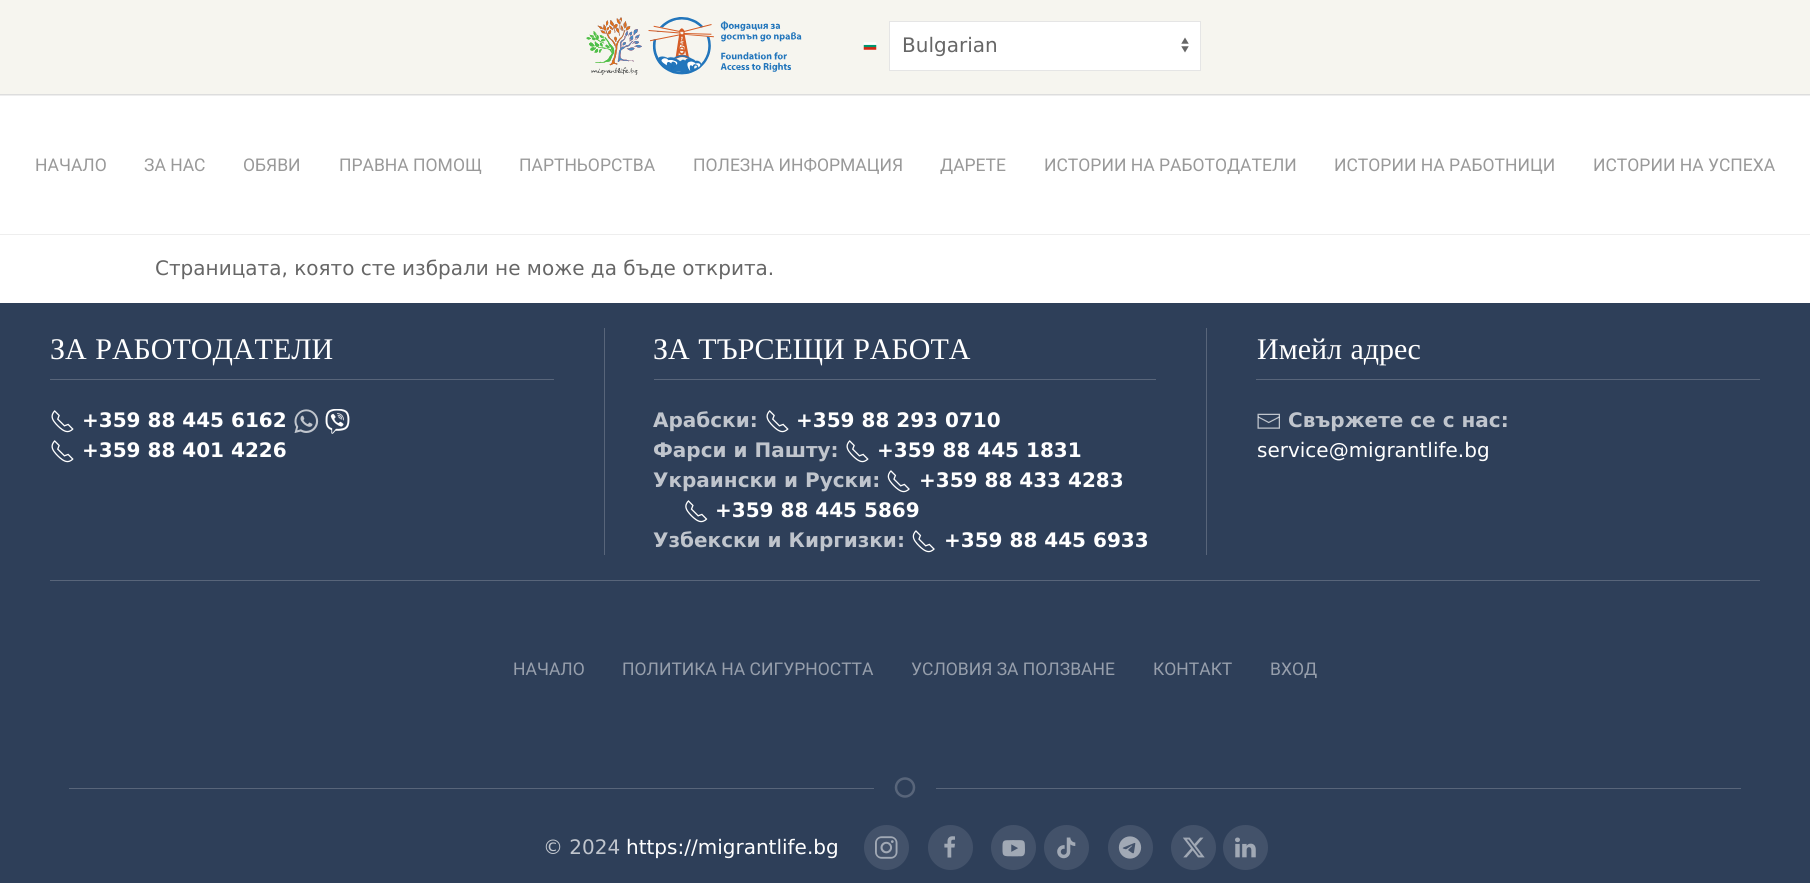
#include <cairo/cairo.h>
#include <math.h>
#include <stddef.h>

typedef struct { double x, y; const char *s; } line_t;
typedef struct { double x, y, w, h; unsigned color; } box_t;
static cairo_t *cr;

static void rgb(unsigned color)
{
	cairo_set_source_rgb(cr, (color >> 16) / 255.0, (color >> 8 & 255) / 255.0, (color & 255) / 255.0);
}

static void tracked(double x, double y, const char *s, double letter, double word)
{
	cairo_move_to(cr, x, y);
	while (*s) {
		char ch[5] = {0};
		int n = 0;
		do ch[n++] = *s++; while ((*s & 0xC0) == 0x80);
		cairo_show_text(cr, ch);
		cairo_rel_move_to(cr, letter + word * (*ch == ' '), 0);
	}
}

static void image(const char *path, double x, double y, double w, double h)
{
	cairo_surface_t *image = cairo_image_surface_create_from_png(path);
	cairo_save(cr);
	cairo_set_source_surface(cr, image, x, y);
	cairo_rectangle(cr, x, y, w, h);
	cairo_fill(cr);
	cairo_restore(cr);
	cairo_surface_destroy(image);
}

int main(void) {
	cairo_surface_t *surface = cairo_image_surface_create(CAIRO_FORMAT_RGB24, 1810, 883);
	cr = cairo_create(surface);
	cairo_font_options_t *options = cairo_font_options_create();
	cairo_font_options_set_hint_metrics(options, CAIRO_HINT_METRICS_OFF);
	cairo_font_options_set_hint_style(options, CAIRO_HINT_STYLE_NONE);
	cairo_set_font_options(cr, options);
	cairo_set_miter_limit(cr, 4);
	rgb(0xffffff);
	cairo_paint(cr);
	rgb(0xf6f5ef);
	cairo_rectangle(cr, 0, 0, 1810, 94);
	cairo_fill(cr);
	rgb(0xdddddd);
	cairo_rectangle(cr, 0, 94, 1810, 1);
	cairo_fill(cr);
	image("img/1.png", 586, 17, 216, 58);
	image("img/2.png", 863, 42, 14, 8);
	rgb(0xffffff);
	cairo_rectangle(cr, 890, 22, 310, 48);
	cairo_fill(cr);
	image("img/3.png", 1181, 37, 8, 16);
	cairo_rectangle(cr, 889.5, 21.5, 311, 49);
	rgb(0xe5e5e5);
	cairo_set_line_width(cr, 1);
	cairo_stroke(cr);
	{
		static const box_t items[] = {
			{0, 95, 1810, 1, 0xeeeeee},
			{0, 234, 1810, 1, 0xeeeeee},
			{0, 303, 1810, 580, 0x2e3f59},
			{50, 379, 504, 1, 0x58657a},
		};
		for (size_t i = 0; i < sizeof items / sizeof *items; i++) {
			rgb(items[i].color);
			cairo_rectangle(cr, items[i].x, items[i].y, items[i].w, items[i].h);
			cairo_fill(cr);
		}
	}
	image("img/4.png", 51, 410, 23, 23);
	image("img/5.png", 294, 409, 25, 24);
	image("img/6.png", 325, 409, 25, 25);
	image("img/4.png", 51, 440, 23, 23);
	cairo_rectangle(cr, 604, 328, 1, 227);
	cairo_fill(cr);
	cairo_rectangle(cr, 654, 379, 502, 1);
	cairo_fill(cr);
	image("img/4.png", 766, 410, 23, 23);
	image("img/4.png", 846, 440, 23, 23);
	image("img/7.png", 887, 470, 23, 23);
	image("img/8.png", 685, 500, 23, 23);
	image("img/7.png", 912, 530, 23, 23);
	cairo_rectangle(cr, 1206, 328, 1, 227);
	cairo_fill(cr);
	cairo_rectangle(cr, 1256, 379, 504, 1);
	cairo_fill(cr);
	image("img/9.png", 1257, 413, 23, 16);
	cairo_rectangle(cr, 50, 580, 1710, 1);
	cairo_fill(cr);
	cairo_arc(cr, 905, 787.5, 9, 0, 2 * M_PI);
	cairo_set_line_width(cr, 2.5);
	cairo_stroke(cr);
	cairo_rectangle(cr, 69, 788, 805, 1);
	cairo_fill(cr);
	cairo_rectangle(cr, 936, 788, 805, 1);
	cairo_fill(cr);
	rgb(0x43526a);
	cairo_arc(cr, 886.5, 847.5, 22.5, 0, 2 * M_PI);
	cairo_fill(cr);
	image("img/10.png", 875, 836, 23, 23);
	cairo_arc(cr, 950.5, 847.5, 22.5, 0, 2 * M_PI);
	cairo_fill(cr);
	image("img/11.png", 944, 836, 11, 22);
	cairo_arc(cr, 1013.5, 847.5, 22.5, 0, 2 * M_PI);
	cairo_fill(cr);
	image("img/12.png", 1002, 840, 23, 17);
	cairo_arc(cr, 1066.5, 847.5, 22.5, 0, 2 * M_PI);
	cairo_fill(cr);
	image("img/13.png", 1057, 837, 19, 22);
	cairo_arc(cr, 1130.5, 847.5, 22.5, 0, 2 * M_PI);
	cairo_fill(cr);
	image("img/14.png", 1118, 836, 24, 23);
	cairo_arc(cr, 1193.5, 847.5, 22.5, 0, 2 * M_PI);
	cairo_fill(cr);
	image("img/15.png", 1183, 837, 22, 21);
	cairo_arc(cr, 1245.5, 847.5, 22.5, 0, 2 * M_PI);
	cairo_fill(cr);
	image("img/16.png", 1235, 837, 21, 21);
	cairo_select_font_face(cr, "DejaVu Sans", CAIRO_FONT_SLANT_NORMAL, CAIRO_FONT_WEIGHT_NORMAL);
	cairo_set_font_size(cr, 20);
	rgb(0x666666);
	cairo_move_to(cr, 902, 52);
	cairo_show_text(cr, "Bulgarian");
	cairo_select_font_face(cr, "Roboto", CAIRO_FONT_SLANT_NORMAL, CAIRO_FONT_WEIGHT_NORMAL);
	cairo_set_font_size(cr, 17.5);
	rgb(0x999999);
	{
		static const line_t items[] = {
			{35, 171, "НАЧАЛО"},
			{144, 171, "ЗА НАС"},
			{243, 171, "ОБЯВИ"},
			{339, 171, "ПРАВНА ПОМОЩ"},
			{519, 171, "ПАРТНЬОРСТВА"},
			{693, 171, "ПОЛЕЗНА ИНФОРМАЦИЯ"},
			{940, 171, "ДАРЕТЕ"},
			{1044, 171, "ИСТОРИИ НА РАБОТОДАТЕЛИ"},
			{1334, 171, "ИСТОРИИ НА РАБОТНИЦИ"},
			{1593, 171, "ИСТОРИИ НА УСПЕХА"},
		};
		for (size_t i = 0; i < sizeof items / sizeof *items; i++) {
			cairo_move_to(cr, items[i].x, items[i].y);
			cairo_show_text(cr, items[i].s);
		}
	}
	cairo_select_font_face(cr, "DejaVu Sans", CAIRO_FONT_SLANT_NORMAL, CAIRO_FONT_WEIGHT_NORMAL);
	cairo_set_font_size(cr, 20);
	rgb(0x666666);
	cairo_move_to(cr, 155, 275);
	cairo_show_text(cr, "Страницата, която сте избрали не може да бъде открита.");
	cairo_select_font_face(cr, "Liberation Serif", CAIRO_FONT_SLANT_NORMAL, CAIRO_FONT_WEIGHT_NORMAL);
	cairo_set_font_size(cr, 30);
	rgb(0xffffff);
	tracked(50, 359, "ЗА РАБОТОДАТЕЛИ", 0, 1);
	cairo_select_font_face(cr, "DejaVu Sans", CAIRO_FONT_SLANT_NORMAL, CAIRO_FONT_WEIGHT_BOLD);
	cairo_set_font_size(cr, 20);
	cairo_move_to(cr, 82, 427);
	cairo_show_text(cr, "+359 88 445 6162");
	cairo_move_to(cr, 82, 457);
	cairo_show_text(cr, "+359 88 401 4226");
	cairo_select_font_face(cr, "Liberation Serif", CAIRO_FONT_SLANT_NORMAL, CAIRO_FONT_WEIGHT_NORMAL);
	cairo_set_font_size(cr, 30);
	tracked(653, 359, "ЗА ТЪРСЕЩИ РАБОТА", 0, 1);
	cairo_select_font_face(cr, "DejaVu Sans", CAIRO_FONT_SLANT_NORMAL, CAIRO_FONT_WEIGHT_BOLD);
	cairo_set_font_size(cr, 20);
	rgb(0xc0c5cd);
	cairo_move_to(cr, 653, 427);
	cairo_show_text(cr, "Арабски:");
	rgb(0xffffff);
	cairo_move_to(cr, 796, 427);
	cairo_show_text(cr, "+359 88 293 0710");
	rgb(0xc0c5cd);
	cairo_move_to(cr, 653, 457);
	cairo_show_text(cr, "Фарси и Пашту:");
	rgb(0xffffff);
	cairo_move_to(cr, 877, 457);
	cairo_show_text(cr, "+359 88 445 1831");
	rgb(0xc0c5cd);
	cairo_move_to(cr, 653, 487);
	cairo_show_text(cr, "Украински и Руски:");
	rgb(0xffffff);
	cairo_move_to(cr, 919, 487);
	cairo_show_text(cr, "+359 88 433 4283");
	cairo_move_to(cr, 715, 517);
	cairo_show_text(cr, "+359 88 445 5869");
	rgb(0xc0c5cd);
	cairo_move_to(cr, 653, 547);
	cairo_show_text(cr, "Узбекски и Киргизки:");
	rgb(0xffffff);
	cairo_move_to(cr, 944, 547);
	cairo_show_text(cr, "+359 88 445 6933");
	cairo_select_font_face(cr, "Liberation Serif", CAIRO_FONT_SLANT_NORMAL, CAIRO_FONT_WEIGHT_NORMAL);
	cairo_set_font_size(cr, 30);
	tracked(1257, 359, "Имейл адрес", 0, 1);
	cairo_select_font_face(cr, "DejaVu Sans", CAIRO_FONT_SLANT_NORMAL, CAIRO_FONT_WEIGHT_BOLD);
	cairo_set_font_size(cr, 20);
	rgb(0xc0c5cd);
	cairo_move_to(cr, 1288, 427);
	cairo_show_text(cr, "Свържете се с нас:");
	cairo_select_font_face(cr, "DejaVu Sans", CAIRO_FONT_SLANT_NORMAL, CAIRO_FONT_WEIGHT_NORMAL);
	rgb(0xffffff);
	cairo_move_to(cr, 1257, 457);
	cairo_show_text(cr, "service@migrantlife.bg");
	cairo_select_font_face(cr, "Roboto", CAIRO_FONT_SLANT_NORMAL, CAIRO_FONT_WEIGHT_NORMAL);
	cairo_set_font_size(cr, 17.5);
	rgb(0x979fac);
	{
		static const line_t items[] = {
			{513, 675, "НАЧАЛО"},
			{622, 675, "ПОЛИТИКА НА СИГУРНОСТТА"},
			{911, 675, "УСЛОВИЯ ЗА ПОЛЗВАНЕ"},
			{1153, 675, "КОНТАКТ"},
			{1270, 675, "ВХОД"},
		};
		for (size_t i = 0; i < sizeof items / sizeof *items; i++) {
			cairo_move_to(cr, items[i].x, items[i].y);
			cairo_show_text(cr, items[i].s);
		}
	}
	cairo_select_font_face(cr, "DejaVu Sans", CAIRO_FONT_SLANT_NORMAL, CAIRO_FONT_WEIGHT_NORMAL);
	cairo_set_font_size(cr, 20);
	rgb(0xc0c5cd);
	cairo_move_to(cr, 543, 854);
	cairo_show_text(cr, "© 2024");
	rgb(0xffffff);
	cairo_move_to(cr, 626, 854);
	cairo_show_text(cr, "https://migrantlife.bg");
	cairo_surface_write_to_png(surface, "page.png");
	cairo_font_options_destroy(options);
	cairo_destroy(cr);
	cairo_surface_destroy(surface);
	return 0;
}
